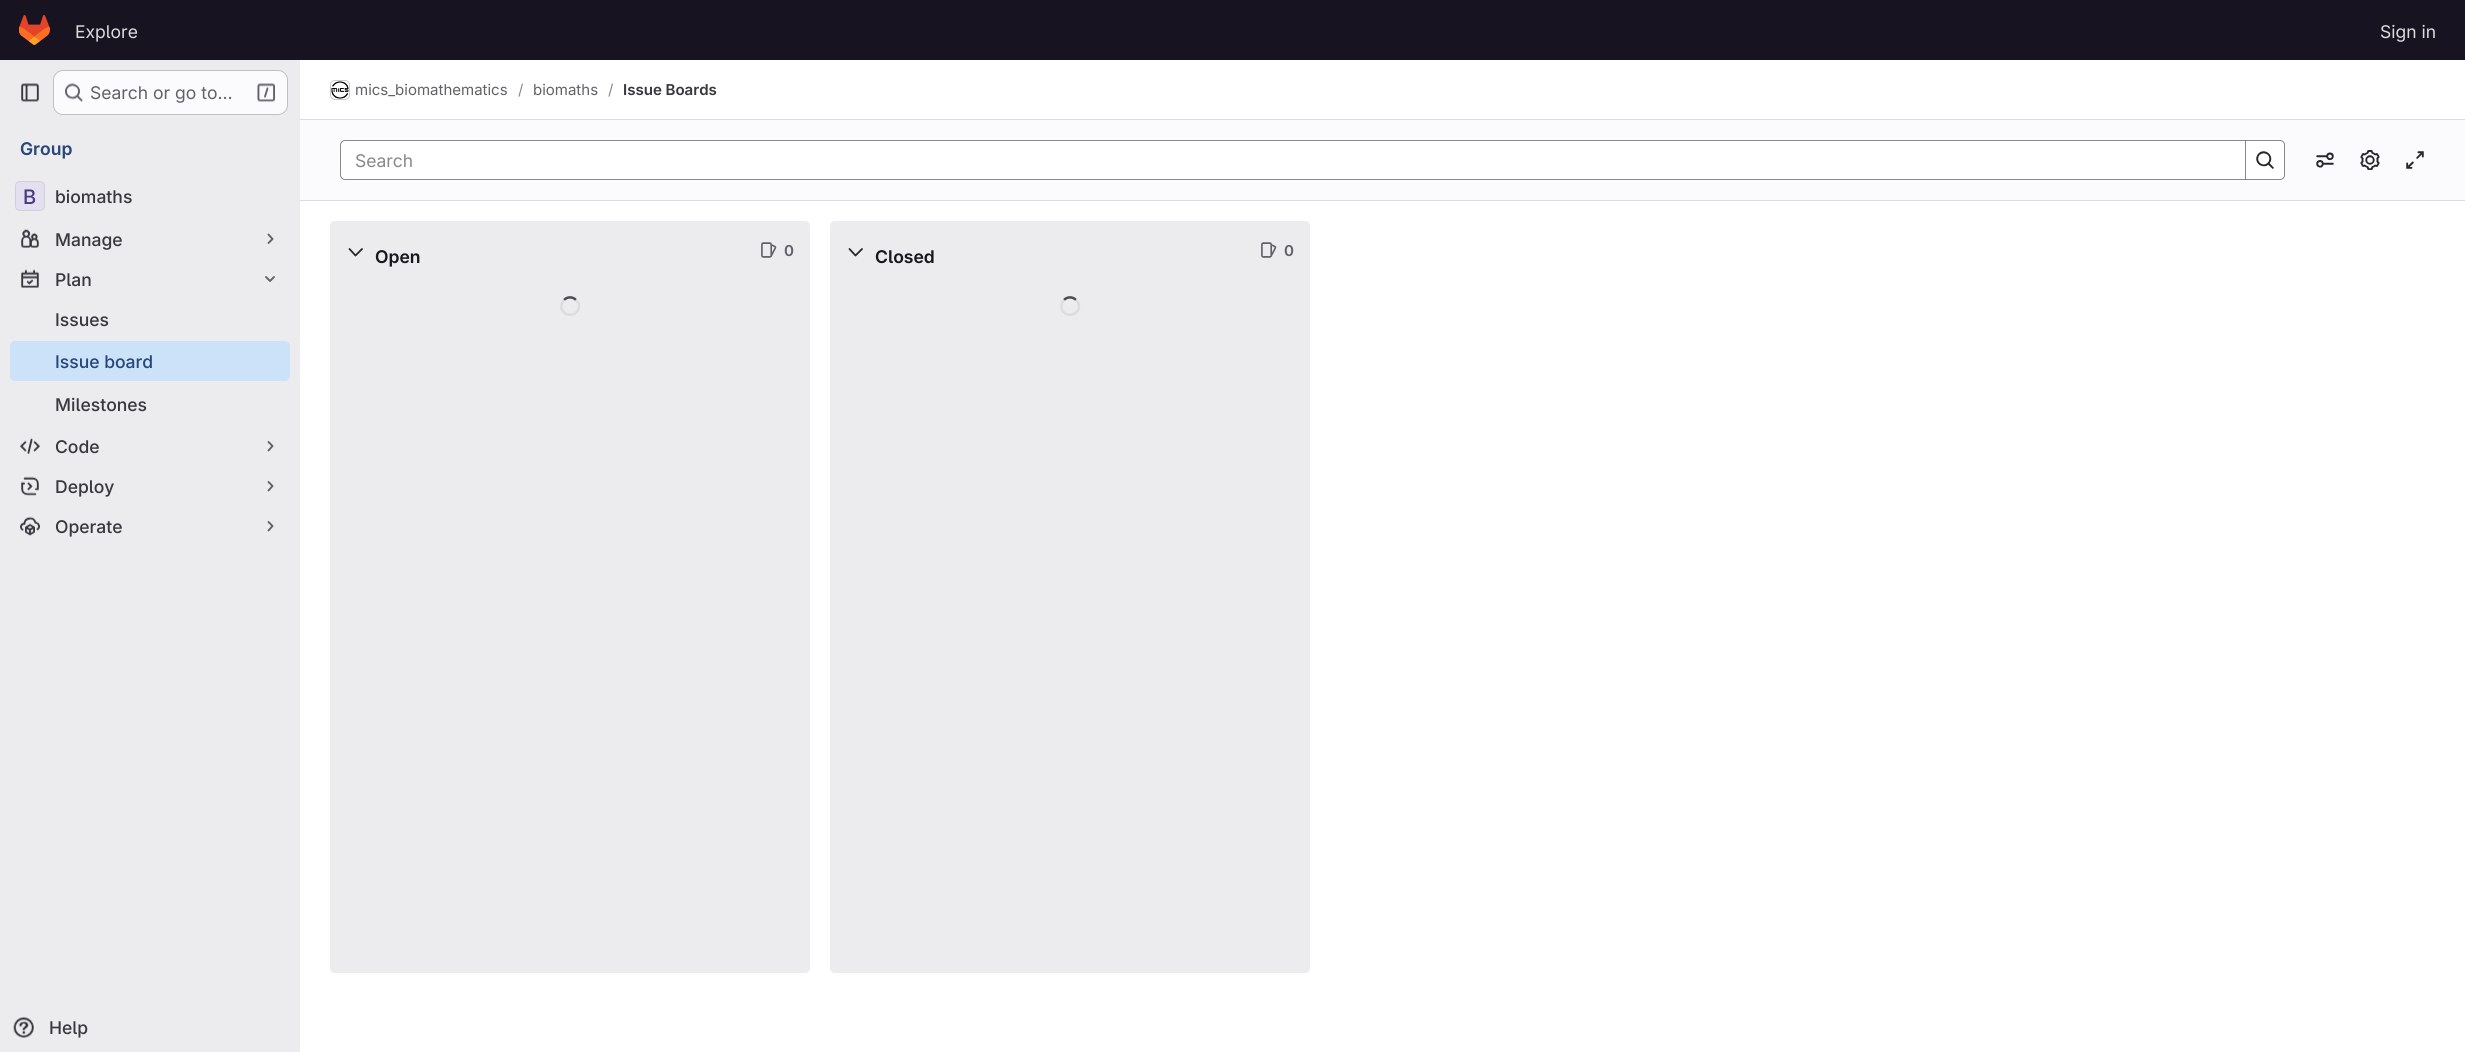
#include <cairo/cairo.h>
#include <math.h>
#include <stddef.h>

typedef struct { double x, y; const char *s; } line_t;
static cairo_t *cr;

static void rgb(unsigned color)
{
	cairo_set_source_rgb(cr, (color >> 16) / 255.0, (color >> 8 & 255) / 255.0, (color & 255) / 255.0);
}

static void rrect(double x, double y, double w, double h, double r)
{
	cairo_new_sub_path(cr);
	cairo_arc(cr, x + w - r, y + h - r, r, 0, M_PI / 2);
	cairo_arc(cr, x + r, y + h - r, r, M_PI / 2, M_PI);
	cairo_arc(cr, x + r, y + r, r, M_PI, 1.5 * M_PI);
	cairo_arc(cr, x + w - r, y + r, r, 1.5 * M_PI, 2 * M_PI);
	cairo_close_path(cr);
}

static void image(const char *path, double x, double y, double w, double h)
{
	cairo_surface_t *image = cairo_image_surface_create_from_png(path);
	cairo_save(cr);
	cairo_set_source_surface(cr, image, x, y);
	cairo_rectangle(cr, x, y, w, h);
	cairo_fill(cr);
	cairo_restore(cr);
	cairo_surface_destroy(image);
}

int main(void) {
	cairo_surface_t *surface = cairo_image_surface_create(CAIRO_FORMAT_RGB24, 2465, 1052);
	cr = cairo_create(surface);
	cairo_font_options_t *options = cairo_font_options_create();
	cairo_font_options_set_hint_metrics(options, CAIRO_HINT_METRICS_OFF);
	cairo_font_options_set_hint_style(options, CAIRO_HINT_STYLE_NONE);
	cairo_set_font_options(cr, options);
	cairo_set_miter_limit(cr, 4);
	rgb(0xffffff);
	cairo_paint(cr);
	rgb(0x171321);
	cairo_rectangle(cr, 0, 0, 2465, 60);
	cairo_fill(cr);
	image("img/1.png", 19, 15, 31, 30);
	rgb(0xececef);
	cairo_rectangle(cr, 0, 60, 300, 992);
	cairo_fill(cr);
	image("img/2.png", 21, 83, 18, 19);
	rgb(0xfbfafd);
	rrect(53, 70, 235, 45, 10);
	cairo_fill(cr);
	rrect(53.5, 70.5, 234, 44, 9.5);
	cairo_set_source_rgba(cr, 0.02, 0.02, 0.024, 0.24);
	cairo_set_line_width(cr, 1);
	cairo_stroke(cr);
	image("img/3.png", 65, 83, 18, 19);
	image("img/4.png", 257, 83, 18, 19);
	rgb(0xe4e0f0);
	rrect(15, 181, 30, 30, 5);
	cairo_fill(cr);
	rrect(15.5, 181.5, 29, 29, 4.5);
	cairo_set_source_rgba(cr, 0.02, 0.02, 0.024, 0.08);
	cairo_stroke(cr);
	image("img/5.png", 21, 229, 18, 19);
	cairo_new_path(cr);
	cairo_move_to(cr, 268.5, 234.5);
	cairo_line_to(cr, 272.5, 239);
	cairo_line_to(cr, 268.5, 243);
	rgb(0x626168);
	cairo_set_line_width(cr, 1.9);
	cairo_set_line_cap(cr, CAIRO_LINE_CAP_ROUND);
	cairo_set_line_join(cr, CAIRO_LINE_JOIN_ROUND);
	cairo_stroke(cr);
	image("img/6.png", 21, 269, 18, 19);
	cairo_new_path(cr);
	cairo_move_to(cr, 274, 277);
	cairo_line_to(cr, 270, 281);
	cairo_line_to(cr, 266, 277);
	cairo_stroke(cr);
	rgb(0xcbe2f9);
	rrect(10, 341, 280, 40, 5);
	cairo_fill(cr);
	image("img/7.png", 20, 438, 20, 16);
	cairo_new_path(cr);
	cairo_move_to(cr, 268.5, 442);
	cairo_line_to(cr, 272.5, 446);
	cairo_line_to(cr, 268.5, 450.5);
	rgb(0x626168);
	cairo_stroke(cr);
	image("img/8.png", 21, 476, 18, 20);
	cairo_new_path(cr);
	cairo_move_to(cr, 268.5, 482);
	cairo_line_to(cr, 272.5, 486);
	cairo_line_to(cr, 268.5, 490.5);
	cairo_stroke(cr);
	image("img/9.png", 20, 516, 20, 20);
	cairo_new_path(cr);
	cairo_move_to(cr, 268.5, 522);
	cairo_line_to(cr, 272.5, 526);
	cairo_line_to(cr, 268.5, 530.5);
	cairo_stroke(cr);
	image("img/10.png", 13, 1017, 21, 21);
	rgb(0xdcdcde);
	cairo_rectangle(cr, 300, 119, 2165, 1);
	cairo_fill(cr);
	rrect(330.5, 80.5, 19, 19, 4.5);
	cairo_set_line_width(cr, 1);
	cairo_set_line_cap(cr, CAIRO_LINE_CAP_BUTT);
	cairo_set_line_join(cr, CAIRO_LINE_JOIN_MITER);
	cairo_stroke(cr);
	image("img/11.png", 331, 81, 18, 18);
	rrect(330.5, 80.5, 19, 19, 4.5);
	cairo_set_source_rgba(cr, 0.02, 0.02, 0.024, 0.08);
	cairo_stroke(cr);
	rgb(0xfbfafd);
	cairo_rectangle(cr, 300, 120, 2165, 80);
	cairo_fill(cr);
	rgb(0xdcdcde);
	cairo_rectangle(cr, 300, 200, 2165, 1);
	cairo_fill(cr);
	rgb(0xffffff);
	cairo_new_path(cr);
	cairo_move_to(cr, 345, 140.5);
	cairo_line_to(cr, 2245.5, 140.5);
	cairo_line_to(cr, 2245.5, 179.5);
	cairo_line_to(cr, 345, 179.5);
	cairo_curve_to(cr, 342.5, 179.5, 340.5, 177.5, 340.5, 175);
	cairo_line_to(cr, 340.5, 145);
	cairo_curve_to(cr, 340.5, 142.5, 342.5, 140.5, 345, 140.5);
	cairo_close_path(cr);
	cairo_fill_preserve(cr);
	rgb(0x89888d);
	cairo_stroke(cr);
	rgb(0xffffff);
	cairo_new_path(cr);
	cairo_move_to(cr, 2245.5, 140.5);
	cairo_line_to(cr, 2280, 140.5);
	cairo_curve_to(cr, 2282.5, 140.5, 2284.5, 142.5, 2284.5, 145);
	cairo_line_to(cr, 2284.5, 175);
	cairo_curve_to(cr, 2284.5, 177.5, 2282.5, 179.5, 2280, 179.5);
	cairo_line_to(cr, 2245.5, 179.5);
	cairo_close_path(cr);
	cairo_fill_preserve(cr);
	rgb(0x89888d);
	cairo_stroke(cr);
	image("img/12.png", 2256, 151, 18, 18);
	image("img/13.png", 2316, 152, 18, 16);
	image("img/14.png", 2360, 150, 20, 20);
	image("img/15.png", 2406, 151, 18, 18);
	rgb(0xececef);
	rrect(330, 221, 480, 752, 5);
	cairo_fill(cr);
	cairo_new_path(cr);
	cairo_move_to(cr, 349.5, 249);
	cairo_line_to(cr, 355.5, 255.5);
	cairo_line_to(cr, 362, 249);
	rgb(0x28272d);
	cairo_set_line_width(cr, 1.8);
	cairo_set_line_cap(cr, CAIRO_LINE_CAP_ROUND);
	cairo_set_line_join(cr, CAIRO_LINE_JOIN_ROUND);
	cairo_stroke(cr);
	image("img/16.png", 761, 242, 16, 16);
	cairo_new_path(cr);
	cairo_move_to(cr, 564, 300);
	cairo_curve_to(cr, 567, 296.5, 573, 296.5, 576, 300);
	rgb(0x4c4b51);
	cairo_set_line_width(cr, 2.5);
	cairo_set_line_cap(cr, CAIRO_LINE_CAP_BUTT);
	cairo_set_line_join(cr, CAIRO_LINE_JOIN_MITER);
	cairo_stroke(cr);
	cairo_new_path(cr);
	cairo_move_to(cr, 576, 300);
	cairo_curve_to(cr, 578, 301.5, 579, 304, 579, 306);
	cairo_curve_to(cr, 579, 316.5, 563.5, 318, 561.5, 308);
	cairo_curve_to(cr, 561, 305, 562, 302, 564, 300);
	rgb(0xdcdcde);
	cairo_stroke(cr);
	rgb(0xececef);
	rrect(830, 221, 480, 752, 5);
	cairo_fill(cr);
	cairo_new_path(cr);
	cairo_move_to(cr, 849.5, 249);
	cairo_line_to(cr, 855.5, 255.5);
	cairo_line_to(cr, 862, 249);
	rgb(0x28272d);
	cairo_set_line_width(cr, 1.8);
	cairo_set_line_cap(cr, CAIRO_LINE_CAP_ROUND);
	cairo_set_line_join(cr, CAIRO_LINE_JOIN_ROUND);
	cairo_stroke(cr);
	image("img/17.png", 1261, 242, 16, 16);
	cairo_new_path(cr);
	cairo_move_to(cr, 1064, 300);
	cairo_curve_to(cr, 1067, 296.5, 1073, 296.5, 1076, 300);
	rgb(0x4c4b51);
	cairo_set_line_width(cr, 2.5);
	cairo_set_line_cap(cr, CAIRO_LINE_CAP_BUTT);
	cairo_set_line_join(cr, CAIRO_LINE_JOIN_MITER);
	cairo_stroke(cr);
	cairo_new_path(cr);
	cairo_move_to(cr, 1076, 300);
	cairo_curve_to(cr, 1078, 301.5, 1079, 304, 1079, 306);
	cairo_curve_to(cr, 1079, 316.5, 1063.5, 318, 1061.5, 308);
	cairo_curve_to(cr, 1061, 305, 1062, 302, 1064, 300);
	rgb(0xdcdcde);
	cairo_stroke(cr);
	cairo_select_font_face(cr, "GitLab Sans", CAIRO_FONT_SLANT_NORMAL, CAIRO_FONT_WEIGHT_NORMAL);
	cairo_set_font_size(cr, 17.5);
	cairo_move_to(cr, 75, 38);
	cairo_show_text(cr, "Explore");
	cairo_move_to(cr, 2380, 38);
	cairo_show_text(cr, "Sign in");
	rgb(0x626168);
	cairo_move_to(cr, 90, 99);
	cairo_show_text(cr, "Search or go to…");
	cairo_select_font_face(cr, "GitLab Sans SemiBold", CAIRO_FONT_SLANT_NORMAL, CAIRO_FONT_WEIGHT_NORMAL);
	rgb(0x284779);
	cairo_move_to(cr, 20, 155);
	cairo_show_text(cr, "Group");
	cairo_select_font_face(cr, "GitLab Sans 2 Medium", CAIRO_FONT_SLANT_NORMAL, CAIRO_FONT_WEIGHT_NORMAL);
	cairo_set_font_size(cr, 20);
	rgb(0x493c83);
	cairo_move_to(cr, 23, 204);
	cairo_show_text(cr, "B");
	cairo_select_font_face(cr, "GitLab Sans Medium", CAIRO_FONT_SLANT_NORMAL, CAIRO_FONT_WEIGHT_NORMAL);
	cairo_set_font_size(cr, 17.5);
	rgb(0x3a383f);
	{
		static const line_t items[] = {
			{55, 203, "biomaths"},
			{55, 246, "Manage"},
			{55, 286, "Plan"},
			{55, 326, "Issues"},
		};
		for (size_t i = 0; i < sizeof items / sizeof *items; i++) {
			cairo_move_to(cr, items[i].x, items[i].y);
			cairo_show_text(cr, items[i].s);
		}
	}
	rgb(0x284779);
	cairo_move_to(cr, 55, 368);
	cairo_show_text(cr, "Issue board");
	rgb(0x3a383f);
	{
		static const line_t items[] = {
			{55, 411, "Milestones"},
			{55, 453, "Code"},
			{55, 493, "Deploy"},
			{55, 533, "Operate"},
			{49, 1034, "Help"},
		};
		for (size_t i = 0; i < sizeof items / sizeof *items; i++) {
			cairo_move_to(cr, items[i].x, items[i].y);
			cairo_show_text(cr, items[i].s);
		}
	}
	cairo_select_font_face(cr, "GitLab Sans", CAIRO_FONT_SLANT_NORMAL, CAIRO_FONT_WEIGHT_NORMAL);
	cairo_set_font_size(cr, 15);
	rgb(0x626168);
	cairo_move_to(cr, 355, 95);
	cairo_show_text(cr, "mics_biomathematics");
	rgb(0x89888d);
	cairo_move_to(cr, 518, 95);
	cairo_show_text(cr, "/");
	rgb(0x626168);
	cairo_move_to(cr, 533, 95);
	cairo_show_text(cr, "biomaths");
	rgb(0x89888d);
	cairo_move_to(cr, 608, 95);
	cairo_show_text(cr, "/");
	cairo_select_font_face(cr, "GitLab Sans SemiBold", CAIRO_FONT_SLANT_NORMAL, CAIRO_FONT_WEIGHT_NORMAL);
	rgb(0x3a383f);
	cairo_move_to(cr, 623, 95);
	cairo_show_text(cr, "Issue Boards");
	cairo_select_font_face(cr, "GitLab Sans", CAIRO_FONT_SLANT_NORMAL, CAIRO_FONT_WEIGHT_NORMAL);
	cairo_set_font_size(cr, 17.5);
	rgb(0x89888d);
	cairo_move_to(cr, 355, 167);
	cairo_show_text(cr, "Search");
	cairo_select_font_face(cr, "GitLab Sans SemiBold", CAIRO_FONT_SLANT_NORMAL, CAIRO_FONT_WEIGHT_NORMAL);
	rgb(0x18171d);
	cairo_move_to(cr, 375, 263);
	cairo_show_text(cr, "Open");
	cairo_set_font_size(cr, 15);
	rgb(0x626168);
	cairo_move_to(cr, 784, 256);
	cairo_show_text(cr, "0");
	cairo_set_font_size(cr, 17.5);
	rgb(0x18171d);
	cairo_move_to(cr, 875, 263);
	cairo_show_text(cr, "Closed");
	cairo_set_font_size(cr, 15);
	rgb(0x626168);
	cairo_move_to(cr, 1284, 256);
	cairo_show_text(cr, "0");
	cairo_surface_write_to_png(surface, "page.png");
	cairo_font_options_destroy(options);
	cairo_destroy(cr);
	cairo_surface_destroy(surface);
	return 0;
}
